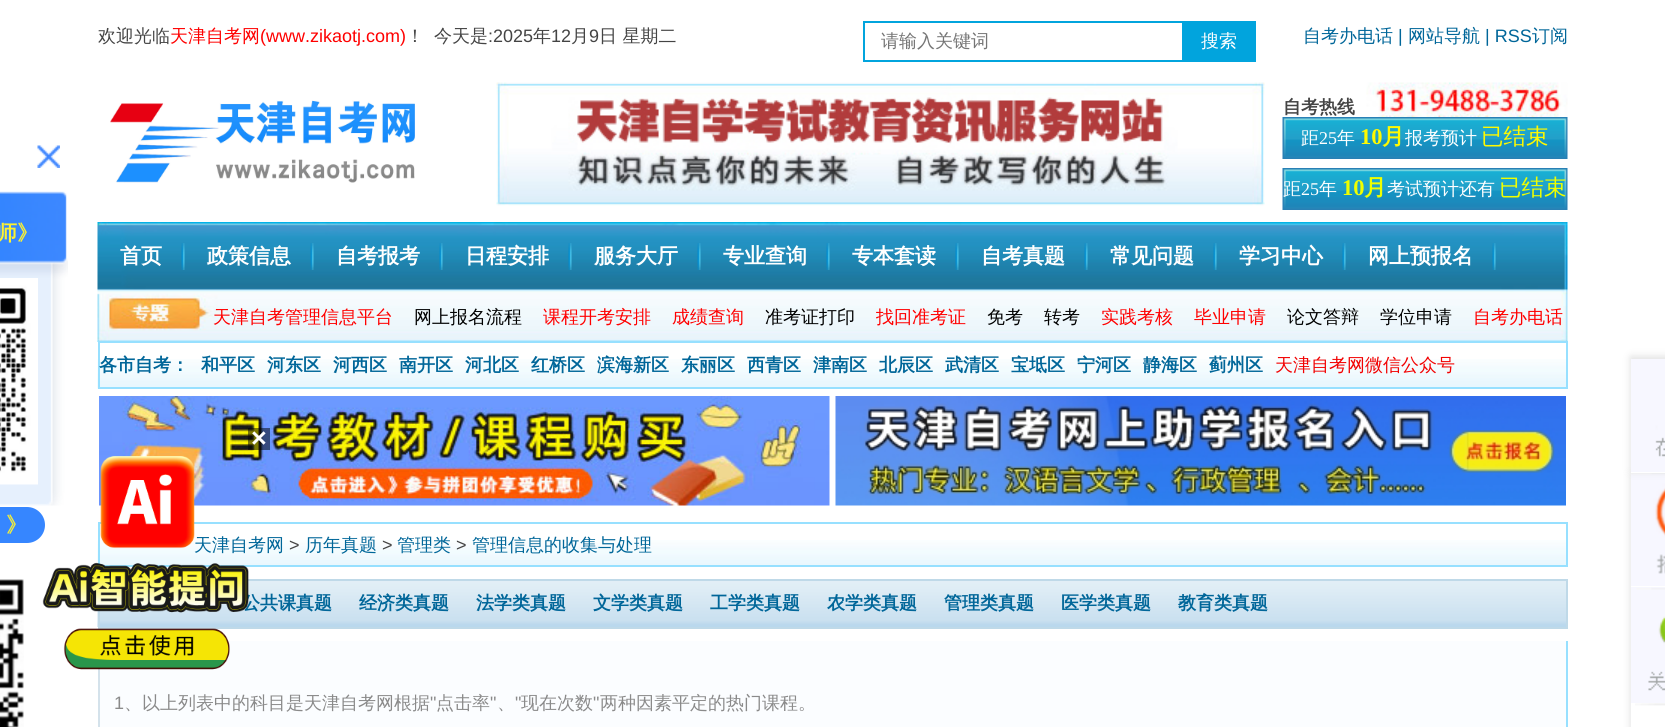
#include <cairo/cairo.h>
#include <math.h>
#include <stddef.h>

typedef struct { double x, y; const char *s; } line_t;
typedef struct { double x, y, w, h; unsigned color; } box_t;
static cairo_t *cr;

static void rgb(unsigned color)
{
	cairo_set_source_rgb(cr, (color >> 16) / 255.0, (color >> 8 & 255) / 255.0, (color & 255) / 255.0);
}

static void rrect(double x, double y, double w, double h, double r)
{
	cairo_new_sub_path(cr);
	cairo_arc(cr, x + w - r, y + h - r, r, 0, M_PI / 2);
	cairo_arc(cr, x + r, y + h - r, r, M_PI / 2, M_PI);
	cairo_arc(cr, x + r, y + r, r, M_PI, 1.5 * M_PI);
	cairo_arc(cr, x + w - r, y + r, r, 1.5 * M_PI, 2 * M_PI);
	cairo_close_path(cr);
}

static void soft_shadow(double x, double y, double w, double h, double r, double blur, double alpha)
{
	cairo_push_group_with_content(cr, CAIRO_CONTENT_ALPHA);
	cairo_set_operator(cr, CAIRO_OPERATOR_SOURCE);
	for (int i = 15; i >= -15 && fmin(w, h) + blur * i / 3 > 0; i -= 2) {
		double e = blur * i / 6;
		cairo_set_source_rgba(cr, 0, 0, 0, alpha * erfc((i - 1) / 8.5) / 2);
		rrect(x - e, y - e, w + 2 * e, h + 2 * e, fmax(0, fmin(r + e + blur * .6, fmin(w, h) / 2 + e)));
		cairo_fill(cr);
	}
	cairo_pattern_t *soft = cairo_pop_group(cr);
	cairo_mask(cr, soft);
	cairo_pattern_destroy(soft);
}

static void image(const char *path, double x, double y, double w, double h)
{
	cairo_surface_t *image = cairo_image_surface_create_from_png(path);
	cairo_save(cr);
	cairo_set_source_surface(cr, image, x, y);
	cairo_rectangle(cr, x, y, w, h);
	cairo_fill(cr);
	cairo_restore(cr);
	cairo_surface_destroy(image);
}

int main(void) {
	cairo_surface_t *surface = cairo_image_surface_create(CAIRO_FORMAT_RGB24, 1665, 727);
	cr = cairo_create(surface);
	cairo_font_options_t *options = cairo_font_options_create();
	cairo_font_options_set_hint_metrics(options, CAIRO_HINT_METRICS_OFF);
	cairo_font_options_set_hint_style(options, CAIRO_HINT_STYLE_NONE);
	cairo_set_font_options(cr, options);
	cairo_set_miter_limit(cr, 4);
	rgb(0xffffff);
	cairo_paint(cr);
	cairo_rectangle(cr, 864, 22, 319, 39);
	rgb(0x01a4dd);
	cairo_stroke(cr);
	cairo_rectangle(cr, 1184, 21, 72, 41);
	cairo_fill(cr);
	image("img/1.png", 110, 100, 305, 83);
	image("img/2.png", 496, 82, 769, 124);
	image("img/3.png", 1366, 82, 202, 35);
	image("img/4.png", 1282, 117, 286, 42);
	image("img/4.png", 1282, 168, 286, 42);
	image("img/5.png", 97, 222, 1471, 120);
	image("img/6.png", 181, 243, 4, 27);
	image("img/6.png", 310, 243, 4, 27);
	image("img/6.png", 439, 243, 4, 27);
	image("img/6.png", 568, 243, 4, 27);
	image("img/6.png", 697, 243, 4, 27);
	image("img/6.png", 826, 243, 4, 27);
	image("img/6.png", 955, 243, 4, 27);
	image("img/6.png", 1084, 243, 4, 27);
	image("img/6.png", 1213, 243, 4, 27);
	image("img/6.png", 1342, 243, 4, 27);
	image("img/6.png", 1492, 243, 4, 27);
	image("img/7.png", 0, 191, 68, 315);
	image("img/8.png", 37, 145, 23, 23);
	image("img/9.png", 0, 278, 38, 207);
	rgb(0x3686ff);
	rrect(-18, 507, 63, 36, 18);
	cairo_fill(cr);
	image("img/10.png", 0, 579, 24, 148);
	image("img/11.png", 97, 359, 1469, 30);
	cairo_rectangle(cr, 99, 342, 1468, 46);
	rgb(0x97e0ff);
	cairo_stroke(cr);
	cairo_save(cr);
	cairo_rectangle(cr, 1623, 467, 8, 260);
	cairo_clip(cr);
	rgb(0xdddddd);
	soft_shadow(1631, 474, 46, 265, 0, 4, 1);
	cairo_restore(cr);
	image("img/13.png", 1631, 473, 34, 113);
	rgb(0xdddddd);
	soft_shadow(1631, 357, 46, 114, 0, 4, 1);
	rgb(0xffffff);
	cairo_rectangle(cr, 1631, 472, 34, 1);
	cairo_fill(cr);
	image("img/12.png", 1631, 359, 34, 113);
	image("img/14.png", 1631, 587, 34, 116);
	image("img/15.png", 1635, 703, 30, 3);
	image("img/16.png", 99, 396, 731, 110);
	image("img/17.png", 835, 396, 731, 110);
	cairo_set_source_rgba(cr, 0, 0, 0, 0.5);
	cairo_rectangle(cr, 248, 428, 22, 22);
	cairo_fill(cr);
	image("img/19.png", 97, 540, 1469, 25);
	cairo_rectangle(cr, 99, 523, 1468, 43);
	rgb(0x97e0ff);
	cairo_stroke(cr);
	image("img/20.png", 97, 581, 1469, 46);
	cairo_rectangle(cr, 99, 580, 1468, 48);
	rgb(0xbfd9e8);
	cairo_stroke(cr);
	{
		static const box_t items[] = {
			{1566, 641, 2, 86, 0x97e0ff},
			{100, 641, 1466, 86, 0xfbfdff},
			{98, 669, 2, 58, 0xd4e2eb},
		};
		for (size_t i = 0; i < sizeof items / sizeof *items; i++) {
			rgb(items[i].color);
			cairo_rectangle(cr, items[i].x, items[i].y, items[i].w, items[i].h);
			cairo_fill(cr);
		}
	}
	cairo_select_font_face(cr, "WenQuanYi Zen Hei Medium", CAIRO_FONT_SLANT_NORMAL, CAIRO_FONT_WEIGHT_NORMAL);
	cairo_set_font_size(cr, 18);
	rgb(0x444444);
	cairo_move_to(cr, 98, 42);
	cairo_show_text(cr, "欢迎光临");
	rgb(0xff0000);
	cairo_move_to(cr, 170, 42);
	cairo_show_text(cr, "天津自考网");
	cairo_select_font_face(cr, "Liberation Sans", CAIRO_FONT_SLANT_NORMAL, CAIRO_FONT_WEIGHT_NORMAL);
	cairo_move_to(cr, 260, 42);
	cairo_show_text(cr, "(www.zikaotj.com)");
	cairo_select_font_face(cr, "WenQuanYi Zen Hei Medium", CAIRO_FONT_SLANT_NORMAL, CAIRO_FONT_WEIGHT_NORMAL);
	rgb(0x444444);
	cairo_move_to(cr, 406, 42);
	cairo_show_text(cr, "！");
	cairo_move_to(cr, 434, 42);
	cairo_show_text(cr, "今天是");
	cairo_select_font_face(cr, "Liberation Sans", CAIRO_FONT_SLANT_NORMAL, CAIRO_FONT_WEIGHT_NORMAL);
	cairo_move_to(cr, 488, 42);
	cairo_show_text(cr, ":2025");
	cairo_select_font_face(cr, "WenQuanYi Zen Hei Medium", CAIRO_FONT_SLANT_NORMAL, CAIRO_FONT_WEIGHT_NORMAL);
	cairo_move_to(cr, 533, 42);
	cairo_show_text(cr, "年");
	cairo_select_font_face(cr, "Liberation Sans", CAIRO_FONT_SLANT_NORMAL, CAIRO_FONT_WEIGHT_NORMAL);
	cairo_move_to(cr, 551, 42);
	cairo_show_text(cr, "12");
	cairo_select_font_face(cr, "WenQuanYi Zen Hei Medium", CAIRO_FONT_SLANT_NORMAL, CAIRO_FONT_WEIGHT_NORMAL);
	cairo_move_to(cr, 571, 42);
	cairo_show_text(cr, "月");
	cairo_select_font_face(cr, "Liberation Sans", CAIRO_FONT_SLANT_NORMAL, CAIRO_FONT_WEIGHT_NORMAL);
	cairo_move_to(cr, 589, 42);
	cairo_show_text(cr, "9");
	cairo_select_font_face(cr, "WenQuanYi Zen Hei Medium", CAIRO_FONT_SLANT_NORMAL, CAIRO_FONT_WEIGHT_NORMAL);
	cairo_move_to(cr, 599, 42);
	cairo_show_text(cr, "日 星期二");
	rgb(0x757575);
	cairo_move_to(cr, 881, 47);
	cairo_show_text(cr, "请输入关键词");
	rgb(0xffffff);
	cairo_move_to(cr, 1201, 47);
	cairo_show_text(cr, "搜索");
	rgb(0x006699);
	cairo_move_to(cr, 1303, 42);
	cairo_show_text(cr, "自考办电话");
	cairo_select_font_face(cr, "Liberation Sans", CAIRO_FONT_SLANT_NORMAL, CAIRO_FONT_WEIGHT_NORMAL);
	cairo_move_to(cr, 1398, 42);
	cairo_show_text(cr, "|");
	cairo_select_font_face(cr, "WenQuanYi Zen Hei Medium", CAIRO_FONT_SLANT_NORMAL, CAIRO_FONT_WEIGHT_NORMAL);
	cairo_move_to(cr, 1408, 42);
	cairo_show_text(cr, "网站导航");
	cairo_select_font_face(cr, "Liberation Sans", CAIRO_FONT_SLANT_NORMAL, CAIRO_FONT_WEIGHT_NORMAL);
	cairo_move_to(cr, 1485, 42);
	cairo_show_text(cr, "| RSS");
	cairo_select_font_face(cr, "WenQuanYi Zen Hei Medium", CAIRO_FONT_SLANT_NORMAL, CAIRO_FONT_WEIGHT_NORMAL);
	cairo_move_to(cr, 1532, 42);
	cairo_show_text(cr, "订阅");
	cairo_select_font_face(cr, "WenQuanYi Zen Hei", CAIRO_FONT_SLANT_NORMAL, CAIRO_FONT_WEIGHT_BOLD);
	rgb(0x444444);
	cairo_move_to(cr, 1283, 113);
	cairo_show_text(cr, "自考热线");
	cairo_select_font_face(cr, "WenQuanYi Zen Hei Medium", CAIRO_FONT_SLANT_NORMAL, CAIRO_FONT_WEIGHT_NORMAL);
	rgb(0xffffff);
	cairo_move_to(cr, 1301, 144);
	cairo_show_text(cr, "距");
	cairo_select_font_face(cr, "Liberation Serif", CAIRO_FONT_SLANT_NORMAL, CAIRO_FONT_WEIGHT_NORMAL);
	cairo_move_to(cr, 1319, 144);
	cairo_show_text(cr, "25");
	cairo_select_font_face(cr, "WenQuanYi Zen Hei Medium", CAIRO_FONT_SLANT_NORMAL, CAIRO_FONT_WEIGHT_NORMAL);
	cairo_move_to(cr, 1337, 144);
	cairo_show_text(cr, "年");
	cairo_select_font_face(cr, "Liberation Serif", CAIRO_FONT_SLANT_NORMAL, CAIRO_FONT_WEIGHT_BOLD);
	cairo_set_font_size(cr, 22.5);
	rgb(0xfff900);
	cairo_move_to(cr, 1360, 144);
	cairo_show_text(cr, "10");
	cairo_select_font_face(cr, "WenQuanYi Zen Hei", CAIRO_FONT_SLANT_NORMAL, CAIRO_FONT_WEIGHT_BOLD);
	cairo_move_to(cr, 1382, 144);
	cairo_show_text(cr, "月");
	cairo_select_font_face(cr, "WenQuanYi Zen Hei Medium", CAIRO_FONT_SLANT_NORMAL, CAIRO_FONT_WEIGHT_NORMAL);
	cairo_set_font_size(cr, 18);
	rgb(0xffffff);
	cairo_move_to(cr, 1405, 144);
	cairo_show_text(cr, "报考预计");
	cairo_set_font_size(cr, 22.5);
	rgb(0xfff900);
	cairo_move_to(cr, 1481, 144);
	cairo_show_text(cr, "已结束");
	cairo_set_font_size(cr, 18);
	rgb(0xffffff);
	cairo_move_to(cr, 1283, 195);
	cairo_show_text(cr, "距");
	cairo_select_font_face(cr, "Liberation Serif", CAIRO_FONT_SLANT_NORMAL, CAIRO_FONT_WEIGHT_NORMAL);
	cairo_move_to(cr, 1301, 195);
	cairo_show_text(cr, "25");
	cairo_select_font_face(cr, "WenQuanYi Zen Hei Medium", CAIRO_FONT_SLANT_NORMAL, CAIRO_FONT_WEIGHT_NORMAL);
	cairo_move_to(cr, 1319, 195);
	cairo_show_text(cr, "年");
	cairo_select_font_face(cr, "Liberation Serif", CAIRO_FONT_SLANT_NORMAL, CAIRO_FONT_WEIGHT_BOLD);
	cairo_set_font_size(cr, 22.5);
	rgb(0xefff00);
	cairo_move_to(cr, 1342, 195);
	cairo_show_text(cr, "10");
	cairo_select_font_face(cr, "WenQuanYi Zen Hei", CAIRO_FONT_SLANT_NORMAL, CAIRO_FONT_WEIGHT_BOLD);
	cairo_move_to(cr, 1364, 195);
	cairo_show_text(cr, "月");
	cairo_select_font_face(cr, "WenQuanYi Zen Hei Medium", CAIRO_FONT_SLANT_NORMAL, CAIRO_FONT_WEIGHT_NORMAL);
	cairo_set_font_size(cr, 18);
	rgb(0xffffff);
	cairo_move_to(cr, 1387, 195);
	cairo_show_text(cr, "考试预计还有");
	cairo_set_font_size(cr, 22.5);
	rgb(0xefff00);
	cairo_move_to(cr, 1499, 195);
	cairo_show_text(cr, "已结束");
	cairo_select_font_face(cr, "WenQuanYi Zen Hei", CAIRO_FONT_SLANT_NORMAL, CAIRO_FONT_WEIGHT_BOLD);
	cairo_set_font_size(cr, 21);
	rgb(0xffffff);
	{
		static const line_t items[] = {
			{120, 263, "首页"},
			{207, 263, "政策信息"},
			{336, 263, "自考报考"},
			{465, 263, "日程安排"},
			{594, 263, "服务大厅"},
			{723, 263, "专业查询"},
			{852, 263, "专本套读"},
			{981, 263, "自考真题"},
			{1110, 263, "常见问题"},
			{1239, 263, "学习中心"},
			{1368, 263, "网上预报名"},
		};
		for (size_t i = 0; i < sizeof items / sizeof *items; i++) {
			cairo_move_to(cr, items[i].x, items[i].y);
			cairo_show_text(cr, items[i].s);
		}
	}
	cairo_select_font_face(cr, "WenQuanYi Zen Hei Medium", CAIRO_FONT_SLANT_NORMAL, CAIRO_FONT_WEIGHT_NORMAL);
	cairo_set_font_size(cr, 18);
	rgb(0xff0000);
	cairo_move_to(cr, 213, 323);
	cairo_show_text(cr, "天津自考管理信息平台");
	rgb(0x000000);
	cairo_move_to(cr, 414, 323);
	cairo_show_text(cr, "网上报名流程");
	rgb(0xff0000);
	cairo_move_to(cr, 543, 323);
	cairo_show_text(cr, "课程开考安排");
	cairo_move_to(cr, 672, 323);
	cairo_show_text(cr, "成绩查询");
	rgb(0x000000);
	cairo_move_to(cr, 765, 323);
	cairo_show_text(cr, "准考证打印");
	rgb(0xff0000);
	cairo_move_to(cr, 876, 323);
	cairo_show_text(cr, "找回准考证");
	rgb(0x000000);
	cairo_move_to(cr, 987, 323);
	cairo_show_text(cr, "免考");
	cairo_move_to(cr, 1044, 323);
	cairo_show_text(cr, "转考");
	rgb(0xff0000);
	cairo_move_to(cr, 1101, 323);
	cairo_show_text(cr, "实践考核");
	cairo_move_to(cr, 1194, 323);
	cairo_show_text(cr, "毕业申请");
	rgb(0x000000);
	cairo_move_to(cr, 1287, 323);
	cairo_show_text(cr, "论文答辩");
	cairo_move_to(cr, 1380, 323);
	cairo_show_text(cr, "学位申请");
	rgb(0xff0000);
	cairo_move_to(cr, 1473, 323);
	cairo_show_text(cr, "自考办电话");
	cairo_select_font_face(cr, "WenQuanYi Zen Hei", CAIRO_FONT_SLANT_NORMAL, CAIRO_FONT_WEIGHT_BOLD);
	cairo_set_font_size(cr, 21);
	rgb(0xfcf231);
	cairo_move_to(cr, -4, 240);
	cairo_show_text(cr, "师》");
	rgb(0xf3ed3b);
	cairo_move_to(cr, 6, 532);
	cairo_show_text(cr, "》");
	cairo_set_font_size(cr, 18);
	rgb(0x006699);
	{
		static const line_t items[] = {
			{99, 371, "各市自考："},
			{201, 371, "和平区"},
			{267, 371, "河东区"},
			{333, 371, "河西区"},
			{399, 371, "南开区"},
			{465, 371, "河北区"},
			{531, 371, "红桥区"},
			{597, 371, "滨海新区"},
			{681, 371, "东丽区"},
			{747, 371, "西青区"},
			{813, 371, "津南区"},
			{879, 371, "北辰区"},
			{945, 371, "武清区"},
			{1011, 371, "宝坻区"},
			{1077, 371, "宁河区"},
			{1143, 371, "静海区"},
			{1209, 371, "蓟州区"},
		};
		for (size_t i = 0; i < sizeof items / sizeof *items; i++) {
			cairo_move_to(cr, items[i].x, items[i].y);
			cairo_show_text(cr, items[i].s);
		}
	}
	cairo_select_font_face(cr, "WenQuanYi Zen Hei Medium", CAIRO_FONT_SLANT_NORMAL, CAIRO_FONT_WEIGHT_NORMAL);
	rgb(0xf20202);
	cairo_move_to(cr, 1275, 371);
	cairo_show_text(cr, "天津自考网微信公众号");
	cairo_select_font_face(cr, "Liberation Sans", CAIRO_FONT_SLANT_NORMAL, CAIRO_FONT_WEIGHT_BOLD);
	cairo_set_font_size(cr, 27);
	rgb(0xffffff);
	cairo_move_to(cr, 251, 447);
	cairo_show_text(cr, "×");
	cairo_select_font_face(cr, "WenQuanYi Zen Hei Medium", CAIRO_FONT_SLANT_NORMAL, CAIRO_FONT_WEIGHT_NORMAL);
	cairo_set_font_size(cr, 18);
	rgb(0x006699);
	cairo_move_to(cr, 194, 551);
	cairo_show_text(cr, "天津自考网");
	cairo_select_font_face(cr, "Liberation Sans", CAIRO_FONT_SLANT_NORMAL, CAIRO_FONT_WEIGHT_NORMAL);
	rgb(0x444444);
	cairo_move_to(cr, 289, 551);
	cairo_show_text(cr, ">");
	cairo_select_font_face(cr, "WenQuanYi Zen Hei Medium", CAIRO_FONT_SLANT_NORMAL, CAIRO_FONT_WEIGHT_NORMAL);
	rgb(0x006699);
	cairo_move_to(cr, 305, 551);
	cairo_show_text(cr, "历年真题");
	cairo_select_font_face(cr, "Liberation Sans", CAIRO_FONT_SLANT_NORMAL, CAIRO_FONT_WEIGHT_NORMAL);
	rgb(0x444444);
	cairo_move_to(cr, 382, 551);
	cairo_show_text(cr, ">");
	cairo_select_font_face(cr, "WenQuanYi Zen Hei Medium", CAIRO_FONT_SLANT_NORMAL, CAIRO_FONT_WEIGHT_NORMAL);
	rgb(0x006699);
	cairo_move_to(cr, 397, 551);
	cairo_show_text(cr, "管理类");
	cairo_select_font_face(cr, "Liberation Sans", CAIRO_FONT_SLANT_NORMAL, CAIRO_FONT_WEIGHT_NORMAL);
	rgb(0x444444);
	cairo_move_to(cr, 456, 551);
	cairo_show_text(cr, ">");
	cairo_select_font_face(cr, "WenQuanYi Zen Hei Medium", CAIRO_FONT_SLANT_NORMAL, CAIRO_FONT_WEIGHT_NORMAL);
	rgb(0x006699);
	cairo_move_to(cr, 472, 551);
	cairo_show_text(cr, "管理信息的收集与处理");
	cairo_select_font_face(cr, "WenQuanYi Zen Hei", CAIRO_FONT_SLANT_NORMAL, CAIRO_FONT_WEIGHT_BOLD);
	cairo_move_to(cr, 242, 609);
	cairo_show_text(cr, "公共课真题");
	image("img/18.png", 42, 456, 207, 214);
	{
		static const line_t items[] = {
			{359, 609, "经济类真题"},
			{476, 609, "法学类真题"},
			{593, 609, "文学类真题"},
			{710, 609, "工学类真题"},
			{827, 609, "农学类真题"},
			{944, 609, "管理类真题"},
			{1061, 609, "医学类真题"},
			{1178, 609, "教育类真题"},
		};
		for (size_t i = 0; i < sizeof items / sizeof *items; i++) {
			cairo_move_to(cr, items[i].x, items[i].y);
			cairo_show_text(cr, items[i].s);
		}
	}
	cairo_select_font_face(cr, "Liberation Sans", CAIRO_FONT_SLANT_NORMAL, CAIRO_FONT_WEIGHT_NORMAL);
	rgb(0x8a8a8a);
	cairo_move_to(cr, 114, 709);
	cairo_show_text(cr, "1");
	cairo_select_font_face(cr, "WenQuanYi Zen Hei Medium", CAIRO_FONT_SLANT_NORMAL, CAIRO_FONT_WEIGHT_NORMAL);
	cairo_move_to(cr, 124, 709);
	cairo_show_text(cr, "、以上列表中的科目是天津自考网根据");
	cairo_select_font_face(cr, "Liberation Sans", CAIRO_FONT_SLANT_NORMAL, CAIRO_FONT_WEIGHT_NORMAL);
	cairo_move_to(cr, 430, 709);
	cairo_show_text(cr, "\"");
	cairo_select_font_face(cr, "WenQuanYi Zen Hei Medium", CAIRO_FONT_SLANT_NORMAL, CAIRO_FONT_WEIGHT_NORMAL);
	cairo_move_to(cr, 436, 709);
	cairo_show_text(cr, "点击率");
	cairo_select_font_face(cr, "Liberation Sans", CAIRO_FONT_SLANT_NORMAL, CAIRO_FONT_WEIGHT_NORMAL);
	cairo_move_to(cr, 490, 709);
	cairo_show_text(cr, "\"");
	cairo_move_to(cr, 515, 709);
	cairo_show_text(cr, "\"");
	cairo_select_font_face(cr, "WenQuanYi Zen Hei Medium", CAIRO_FONT_SLANT_NORMAL, CAIRO_FONT_WEIGHT_NORMAL);
	cairo_move_to(cr, 521, 709);
	cairo_show_text(cr, "现在次数");
	cairo_select_font_face(cr, "Liberation Sans", CAIRO_FONT_SLANT_NORMAL, CAIRO_FONT_WEIGHT_NORMAL);
	cairo_move_to(cr, 593, 709);
	cairo_show_text(cr, "\"");
	cairo_select_font_face(cr, "WenQuanYi Zen Hei Medium", CAIRO_FONT_SLANT_NORMAL, CAIRO_FONT_WEIGHT_NORMAL);
	cairo_move_to(cr, 600, 709);
	cairo_show_text(cr, "两种因素平定的热门课程。");
	cairo_move_to(cr, 497, 709);
	cairo_show_text(cr, "、");
	cairo_surface_write_to_png(surface, "page.png");
	cairo_font_options_destroy(options);
	cairo_destroy(cr);
	cairo_surface_destroy(surface);
	return 0;
}
